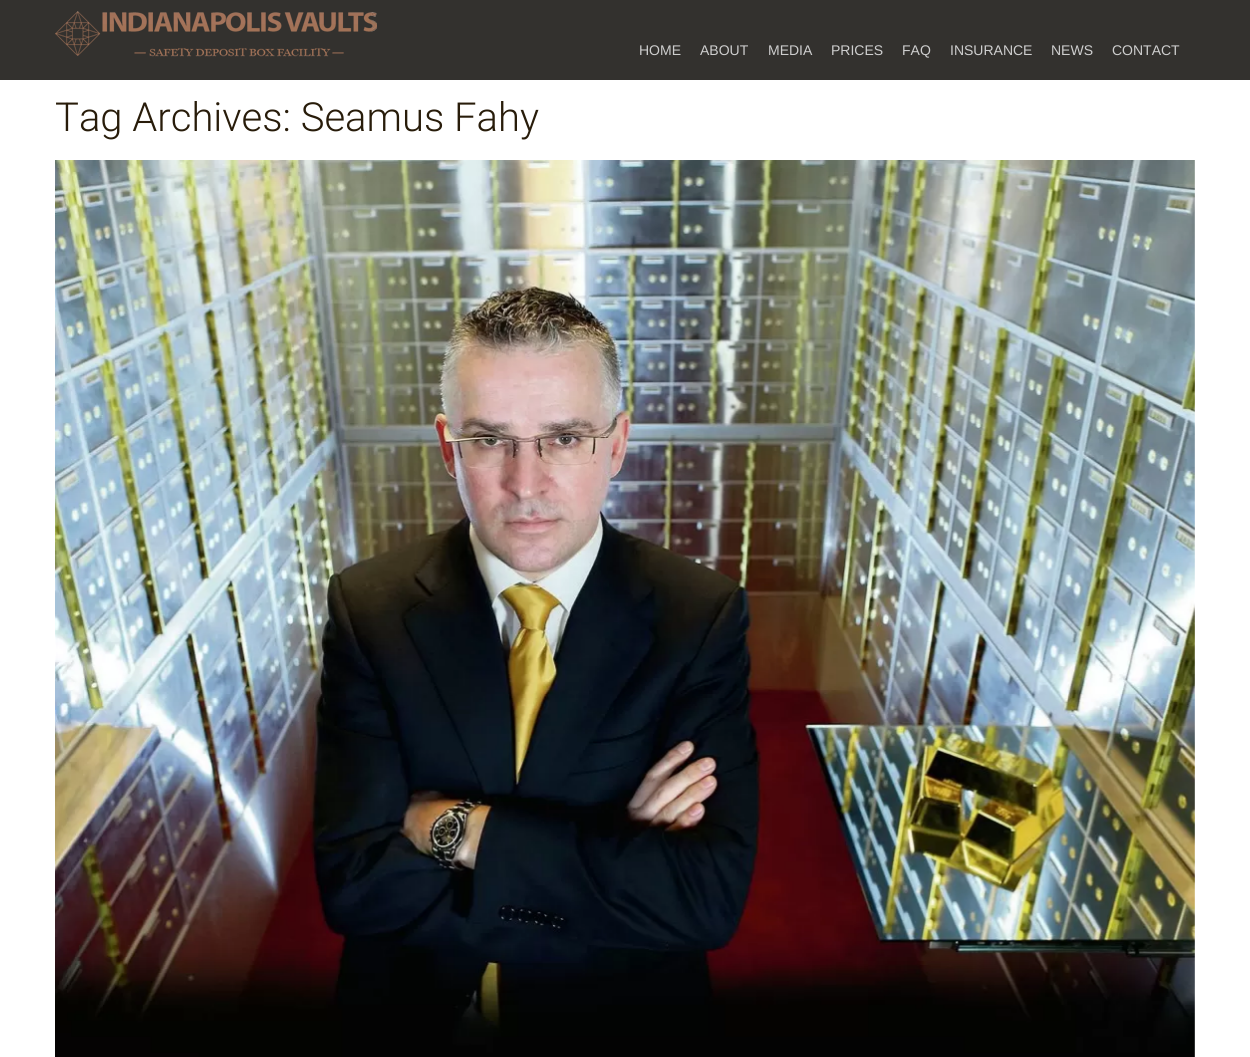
#include <cairo/cairo.h>
#include <math.h>
#include <stddef.h>

typedef struct { double x, y; const char *s; } line_t;
static cairo_t *cr;

static void rgb(unsigned color)
{
	cairo_set_source_rgb(cr, (color >> 16) / 255.0, (color >> 8 & 255) / 255.0, (color & 255) / 255.0);
}

static void image(const char *path, double x, double y, double w, double h)
{
	cairo_surface_t *image = cairo_image_surface_create_from_png(path);
	cairo_save(cr);
	cairo_set_source_surface(cr, image, x, y);
	cairo_rectangle(cr, x, y, w, h);
	cairo_fill(cr);
	cairo_restore(cr);
	cairo_surface_destroy(image);
}

int main(void) {
	cairo_surface_t *surface = cairo_image_surface_create(CAIRO_FORMAT_RGB24, 1250, 1057);
	cr = cairo_create(surface);
	cairo_font_options_t *options = cairo_font_options_create();
	cairo_font_options_set_hint_metrics(options, CAIRO_HINT_METRICS_OFF);
	cairo_font_options_set_hint_style(options, CAIRO_HINT_STYLE_NONE);
	cairo_set_font_options(cr, options);
	cairo_set_miter_limit(cr, 4);
	rgb(0x33312e);
	cairo_paint(cr);
	image("img/1.png", 55, 11, 322, 46);
	rgb(0xffffff);
	cairo_rectangle(cr, 0, 80, 1250, 977);
	cairo_fill(cr);
	image("img/2.png", 55, 160, 1140, 897);
	cairo_select_font_face(cr, "Arimo", CAIRO_FONT_SLANT_NORMAL, CAIRO_FONT_WEIGHT_NORMAL);
	cairo_set_font_size(cr, 14);
	rgb(0xcecece);
	{
		static const line_t items[] = {
			{639, 55, "HOME"},
			{700, 55, "ABOUT"},
			{768, 55, "MEDIA"},
			{831, 55, "PRICES"},
			{902, 55, "FAQ"},
			{950, 55, "INSURANCE"},
			{1051, 55, "NEWS"},
			{1112, 55, "CONTACT"},
		};
		for (size_t i = 0; i < sizeof items / sizeof *items; i++) {
			cairo_move_to(cr, items[i].x, items[i].y);
			cairo_show_text(cr, items[i].s);
		}
	}
	cairo_select_font_face(cr, "Roboto Light", CAIRO_FONT_SLANT_NORMAL, CAIRO_FONT_WEIGHT_NORMAL);
	cairo_set_font_size(cr, 40);
	rgb(0x281c0a);
	cairo_move_to(cr, 55, 131);
	cairo_show_text(cr, "Tag Archives: Seamus Fahy");
	cairo_surface_write_to_png(surface, "page.png");
	cairo_font_options_destroy(options);
	cairo_destroy(cr);
	cairo_surface_destroy(surface);
	return 0;
}
